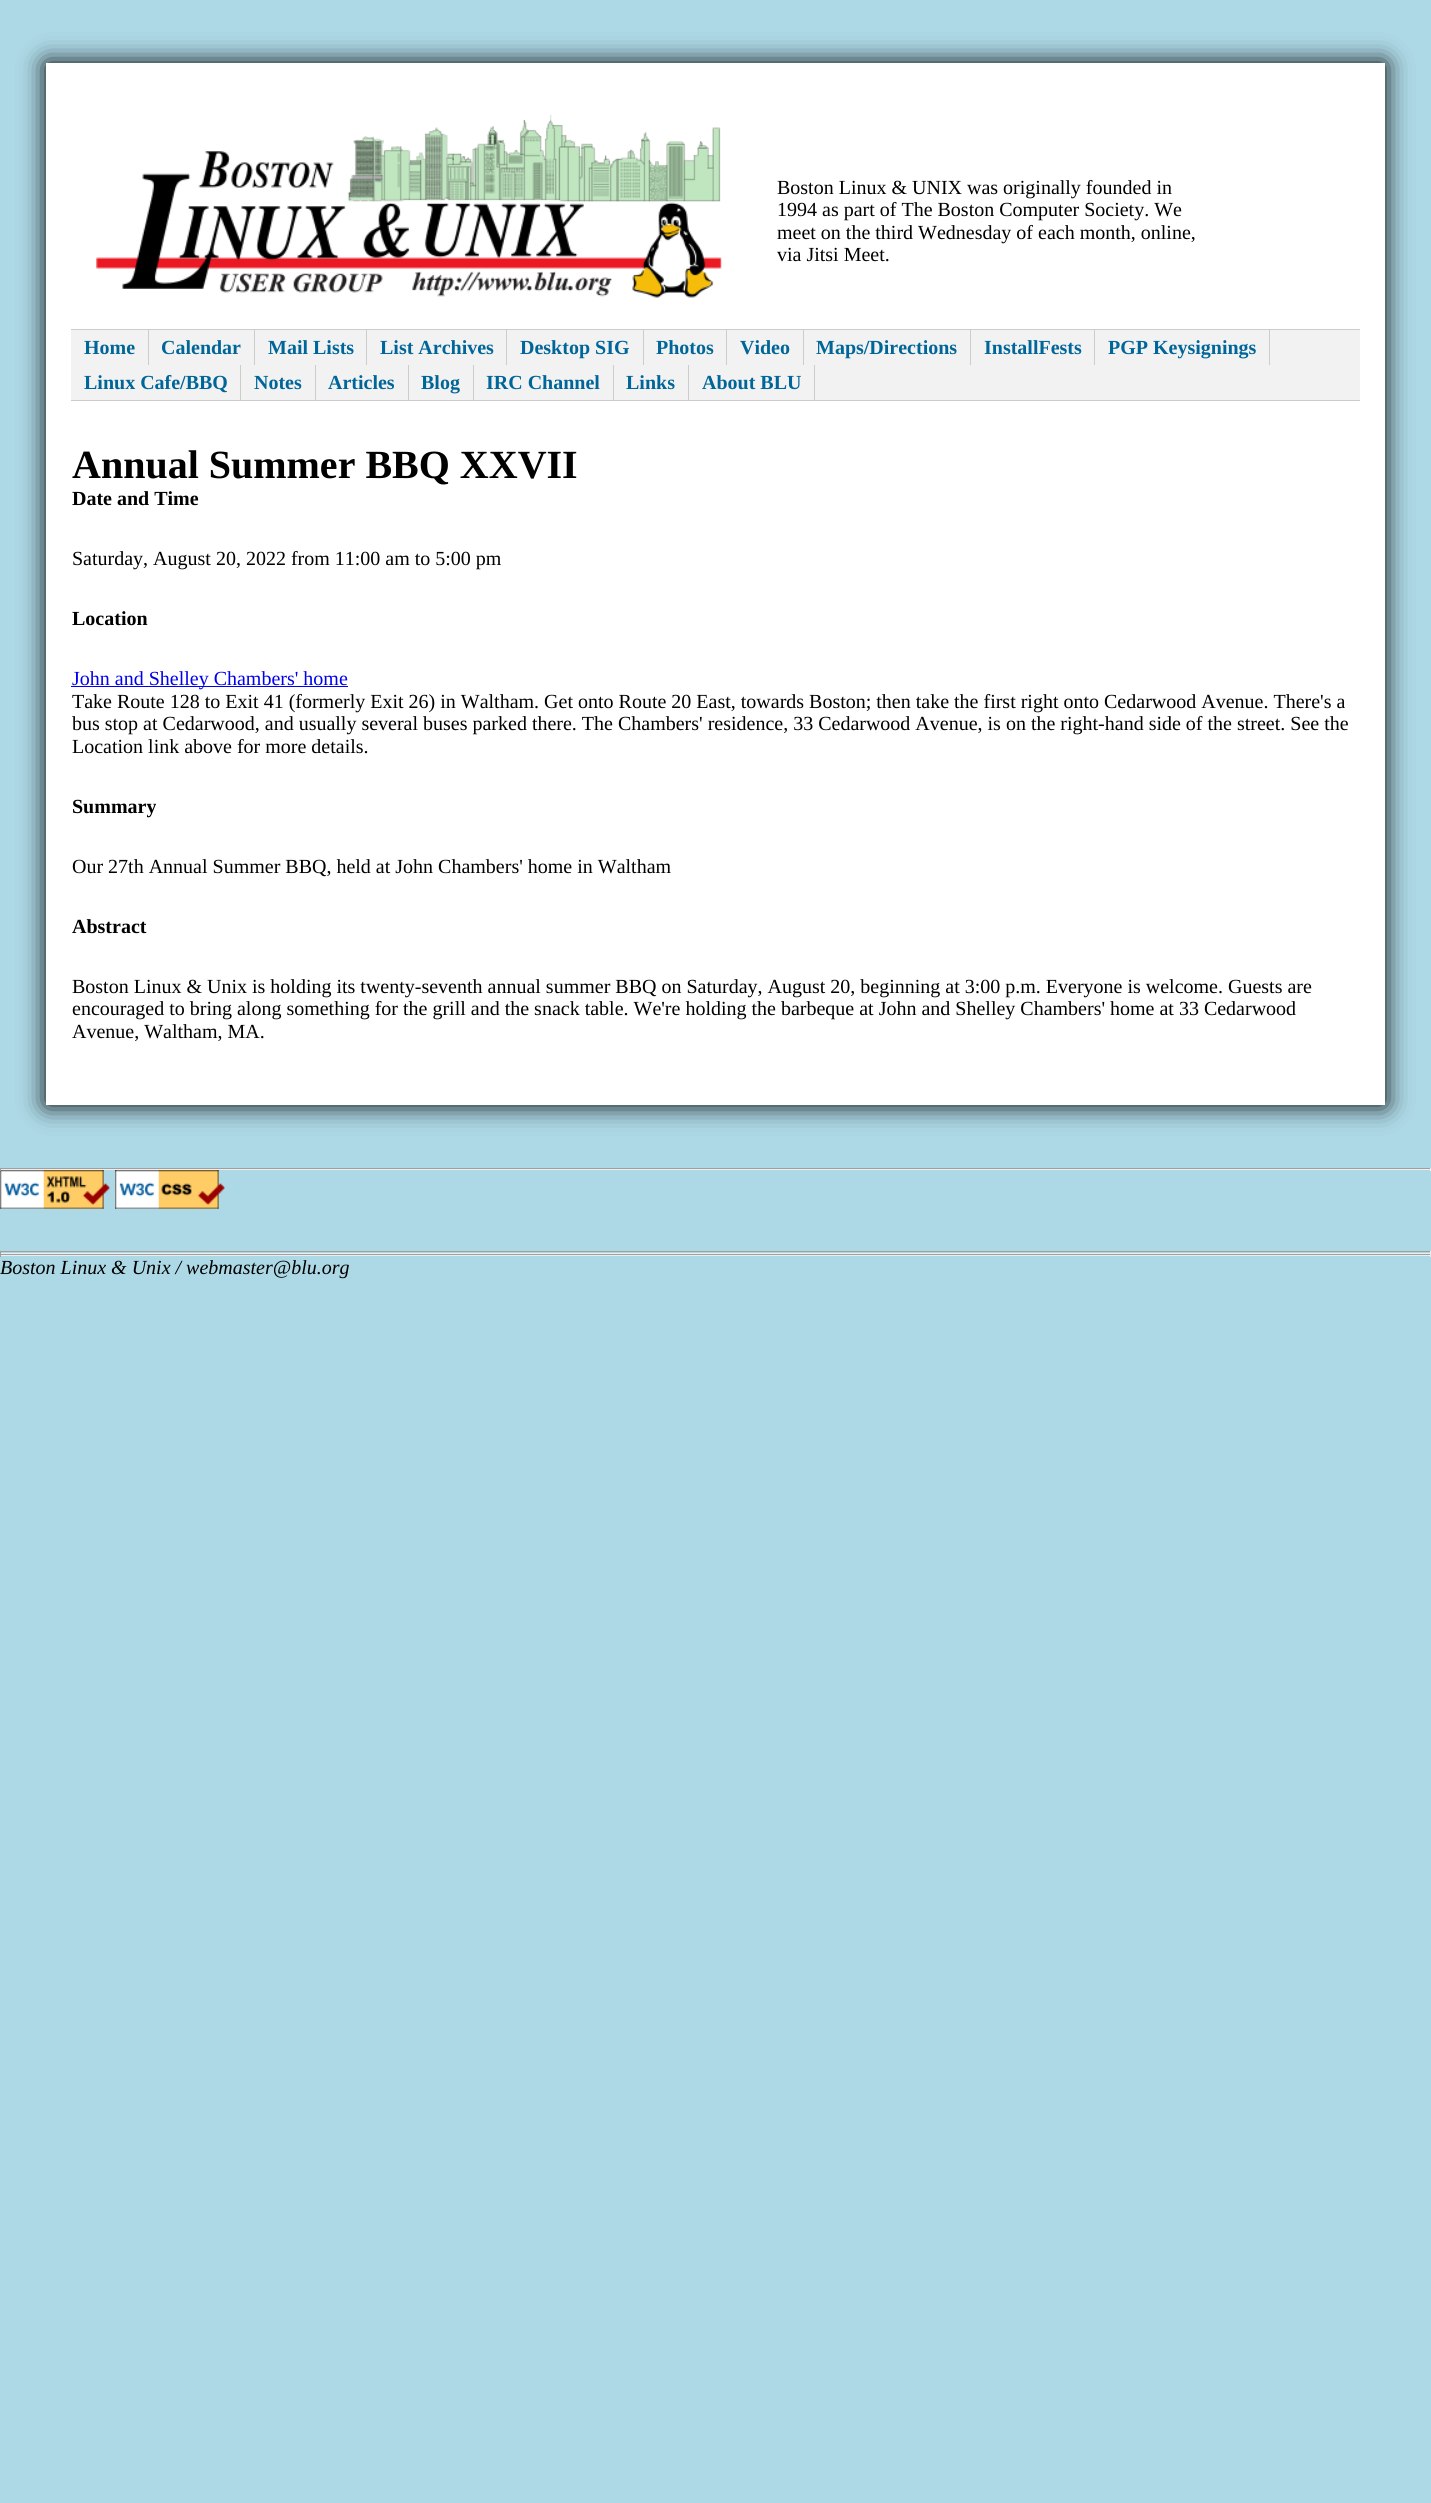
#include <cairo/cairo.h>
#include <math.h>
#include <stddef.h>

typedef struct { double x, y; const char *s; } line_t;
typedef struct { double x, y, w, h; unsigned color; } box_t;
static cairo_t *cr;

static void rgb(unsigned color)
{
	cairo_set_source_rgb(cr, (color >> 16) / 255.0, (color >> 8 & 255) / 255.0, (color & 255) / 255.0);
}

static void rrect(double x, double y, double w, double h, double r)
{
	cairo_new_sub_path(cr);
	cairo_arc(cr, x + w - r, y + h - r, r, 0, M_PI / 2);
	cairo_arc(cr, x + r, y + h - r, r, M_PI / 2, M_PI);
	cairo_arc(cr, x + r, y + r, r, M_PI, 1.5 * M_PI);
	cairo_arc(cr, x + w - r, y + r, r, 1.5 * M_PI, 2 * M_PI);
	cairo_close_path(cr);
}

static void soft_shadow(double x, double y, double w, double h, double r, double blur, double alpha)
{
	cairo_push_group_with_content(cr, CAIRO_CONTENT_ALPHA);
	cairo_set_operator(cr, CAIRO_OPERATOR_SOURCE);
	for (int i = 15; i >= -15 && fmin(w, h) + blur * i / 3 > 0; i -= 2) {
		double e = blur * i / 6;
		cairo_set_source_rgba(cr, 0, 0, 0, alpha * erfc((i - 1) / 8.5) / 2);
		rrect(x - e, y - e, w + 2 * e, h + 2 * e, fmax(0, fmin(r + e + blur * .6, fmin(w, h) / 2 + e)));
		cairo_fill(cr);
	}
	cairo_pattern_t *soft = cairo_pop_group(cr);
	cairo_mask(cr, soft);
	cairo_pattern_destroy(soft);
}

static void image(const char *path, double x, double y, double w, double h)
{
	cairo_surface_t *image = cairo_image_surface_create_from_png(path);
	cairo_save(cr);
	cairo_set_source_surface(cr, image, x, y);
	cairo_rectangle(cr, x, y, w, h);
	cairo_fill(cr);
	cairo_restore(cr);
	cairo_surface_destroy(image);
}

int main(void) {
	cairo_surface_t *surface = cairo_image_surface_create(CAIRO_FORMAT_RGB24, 1431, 2503);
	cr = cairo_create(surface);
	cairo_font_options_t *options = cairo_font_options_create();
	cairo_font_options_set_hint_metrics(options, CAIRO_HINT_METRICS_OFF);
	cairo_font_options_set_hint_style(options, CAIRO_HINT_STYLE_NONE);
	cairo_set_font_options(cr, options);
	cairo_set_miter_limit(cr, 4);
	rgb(0xadd8e6);
	cairo_paint(cr);
	rgb(0x000000);
	soft_shadow(46, 63, 1339, 1042, 0, 12.5, 1);
	rgb(0xffffff);
	cairo_rectangle(cr, 46, 63, 1339, 1042);
	cairo_fill(cr);
	image("img/1.png", 96, 114, 626, 184);
	{
		static const box_t items[] = {
			{71, 330, 1289, 70, 0xf2f2f2},
			{71, 329, 1289, 1, 0xcccccc},
			{71, 400, 1289, 1, 0xcccccc},
			{148, 330, 1, 35, 0xcccccc},
			{254, 330, 1, 35, 0xcccccc},
			{366, 330, 1, 35, 0xcccccc},
			{506, 330, 1, 35, 0xcccccc},
			{643, 330, 1, 35, 0xcccccc},
			{726, 330, 1, 35, 0xcccccc},
			{803, 330, 1, 35, 0xcccccc},
			{970, 330, 1, 35, 0xcccccc},
			{1094, 330, 1, 35, 0xcccccc},
			{1269, 330, 1, 35, 0xcccccc},
			{240, 365, 1, 35, 0xcccccc},
			{315, 365, 1, 35, 0xcccccc},
			{408, 365, 1, 35, 0xcccccc},
			{473, 365, 1, 35, 0xcccccc},
			{613, 365, 1, 35, 0xcccccc},
			{688, 365, 1, 35, 0xcccccc},
			{814, 365, 1, 35, 0xcccccc},
			{71, 686, 277, 1, 0x0000ee},
			{0, 1168, 1431, 1, 0x9f9f9f},
			{1430, 1168, 1, 3, 0xeeeeee},
			{0, 1169, 1431, 1, 0xeeeeee},
		};
		for (size_t i = 0; i < sizeof items / sizeof *items; i++) {
			rgb(items[i].color);
			cairo_rectangle(cr, items[i].x, items[i].y, items[i].w, items[i].h);
			cairo_fill(cr);
		}
	}
	image("img/2.png", 0, 1170, 110, 39);
	rgb(0x9f9f9f);
	cairo_rectangle(cr, 0, 1168, 1, 3);
	cairo_fill(cr);
	image("img/3.png", 115, 1170, 110, 39);
	{
		static const box_t items[] = {
			{0, 1251, 1431, 1, 0x9f9f9f},
			{1430, 1251, 1, 3, 0xeeeeee},
			{0, 1253, 1431, 1, 0xeeeeee},
			{0, 1251, 1, 3, 0x9f9f9f},
			{0, 1254, 1431, 1, 0x9f9f9f},
			{1430, 1254, 1, 3, 0xeeeeee},
			{0, 1255, 1431, 1, 0xeeeeee},
			{0, 1254, 1, 3, 0x9f9f9f},
		};
		for (size_t i = 0; i < sizeof items / sizeof *items; i++) {
			rgb(items[i].color);
			cairo_rectangle(cr, items[i].x, items[i].y, items[i].w, items[i].h);
			cairo_fill(cr);
		}
	}
	cairo_select_font_face(cr, "Liberation Serif", CAIRO_FONT_SLANT_NORMAL, CAIRO_FONT_WEIGHT_NORMAL);
	cairo_set_font_size(cr, 20);
	rgb(0x000000);
	{
		static const line_t items[] = {
			{777, 194, "Boston Linux & UNIX was originally founded in"},
			{777, 216, "1994 as part of The Boston Computer Society. We"},
			{777, 239, "meet on the third Wednesday of each month, online,"},
			{777, 261, "via Jitsi Meet."},
		};
		for (size_t i = 0; i < sizeof items / sizeof *items; i++) {
			cairo_move_to(cr, items[i].x, items[i].y);
			cairo_show_text(cr, items[i].s);
		}
	}
	cairo_select_font_face(cr, "Liberation Serif", CAIRO_FONT_SLANT_NORMAL, CAIRO_FONT_WEIGHT_BOLD);
	rgb(0x006699);
	{
		static const line_t items[] = {
			{84, 354, "Home"},
			{161, 354, "Calendar"},
			{268, 354, "Mail Lists"},
			{380, 354, "List Archives"},
			{520, 354, "Desktop SIG"},
			{656, 354, "Photos"},
			{740, 354, "Video"},
			{816, 354, "Maps/Directions"},
			{984, 354, "InstallFests"},
			{1108, 354, "PGP Keysignings"},
			{84, 389, "Linux Cafe/BBQ"},
			{254, 389, "Notes"},
			{328, 389, "Articles"},
			{421, 389, "Blog"},
			{486, 389, "IRC Channel"},
			{626, 389, "Links"},
			{702, 389, "About BLU"},
		};
		for (size_t i = 0; i < sizeof items / sizeof *items; i++) {
			cairo_move_to(cr, items[i].x, items[i].y);
			cairo_show_text(cr, items[i].s);
		}
	}
	cairo_set_font_size(cr, 40);
	rgb(0x000000);
	cairo_move_to(cr, 72, 478);
	cairo_show_text(cr, "Annual Summer BBQ XXVII");
	cairo_set_font_size(cr, 20);
	cairo_move_to(cr, 72, 505);
	cairo_show_text(cr, "Date and Time");
	cairo_select_font_face(cr, "Liberation Serif", CAIRO_FONT_SLANT_NORMAL, CAIRO_FONT_WEIGHT_NORMAL);
	cairo_move_to(cr, 72, 565);
	cairo_show_text(cr, "Saturday, August 20, 2022 from 11:00 am to 5:00 pm");
	cairo_select_font_face(cr, "Liberation Serif", CAIRO_FONT_SLANT_NORMAL, CAIRO_FONT_WEIGHT_BOLD);
	cairo_move_to(cr, 72, 625);
	cairo_show_text(cr, "Location");
	cairo_select_font_face(cr, "Liberation Serif", CAIRO_FONT_SLANT_NORMAL, CAIRO_FONT_WEIGHT_NORMAL);
	rgb(0x0000ee);
	cairo_move_to(cr, 72, 685);
	cairo_show_text(cr, "John and Shelley Chambers' home");
	rgb(0x000000);
	{
		static const line_t items[] = {
			{72, 708, "Take Route 128 to Exit 41 (formerly Exit 26) in Waltham. Get onto Route 20 East, towards Boston; then take the first right onto Cedarwood Avenue. There's a"},
			{72, 730, "bus stop at Cedarwood, and usually several buses parked there. The Chambers' residence, 33 Cedarwood Avenue, is on the right-hand side of the street. See the"},
			{72, 753, "Location link above for more details."},
		};
		for (size_t i = 0; i < sizeof items / sizeof *items; i++) {
			cairo_move_to(cr, items[i].x, items[i].y);
			cairo_show_text(cr, items[i].s);
		}
	}
	cairo_select_font_face(cr, "Liberation Serif", CAIRO_FONT_SLANT_NORMAL, CAIRO_FONT_WEIGHT_BOLD);
	cairo_move_to(cr, 72, 813);
	cairo_show_text(cr, "Summary");
	cairo_select_font_face(cr, "Liberation Serif", CAIRO_FONT_SLANT_NORMAL, CAIRO_FONT_WEIGHT_NORMAL);
	cairo_move_to(cr, 72, 873);
	cairo_show_text(cr, "Our 27th Annual Summer BBQ, held at John Chambers' home in Waltham");
	cairo_select_font_face(cr, "Liberation Serif", CAIRO_FONT_SLANT_NORMAL, CAIRO_FONT_WEIGHT_BOLD);
	cairo_move_to(cr, 72, 933);
	cairo_show_text(cr, "Abstract");
	cairo_select_font_face(cr, "Liberation Serif", CAIRO_FONT_SLANT_NORMAL, CAIRO_FONT_WEIGHT_NORMAL);
	{
		static const line_t items[] = {
			{72, 993, "Boston Linux & Unix is holding its twenty-seventh annual summer BBQ on Saturday, August 20, beginning at 3:00 p.m. Everyone is welcome. Guests are"},
			{72, 1015, "encouraged to bring along something for the grill and the snack table. We're holding the barbeque at John and Shelley Chambers' home at 33 Cedarwood"},
			{72, 1038, "Avenue, Waltham, MA."},
		};
		for (size_t i = 0; i < sizeof items / sizeof *items; i++) {
			cairo_move_to(cr, items[i].x, items[i].y);
			cairo_show_text(cr, items[i].s);
		}
	}
	cairo_select_font_face(cr, "Liberation Serif", CAIRO_FONT_SLANT_ITALIC, CAIRO_FONT_WEIGHT_NORMAL);
	cairo_move_to(cr, 0, 1274);
	cairo_show_text(cr, "Boston Linux & Unix / webmaster@blu.org");
	cairo_surface_write_to_png(surface, "page.png");
	cairo_font_options_destroy(options);
	cairo_destroy(cr);
	cairo_surface_destroy(surface);
	return 0;
}
